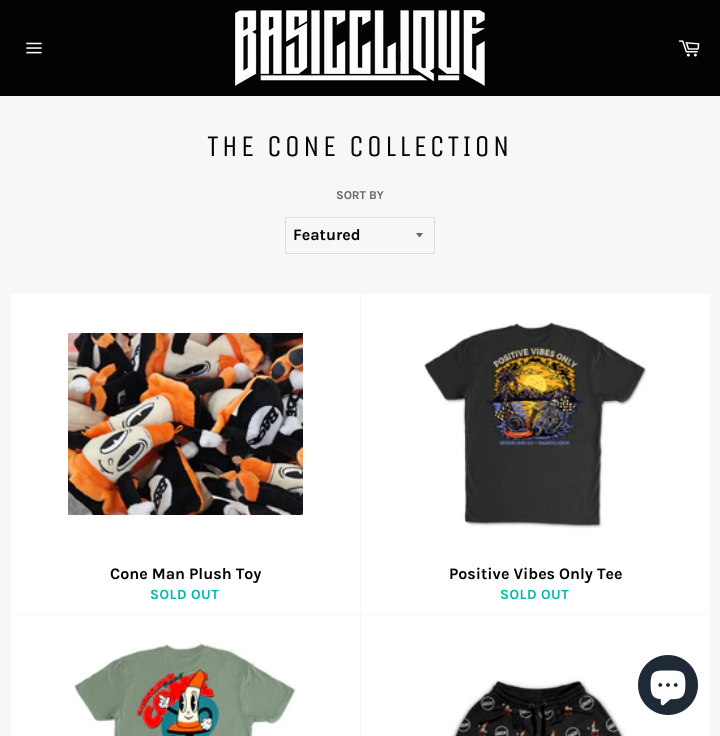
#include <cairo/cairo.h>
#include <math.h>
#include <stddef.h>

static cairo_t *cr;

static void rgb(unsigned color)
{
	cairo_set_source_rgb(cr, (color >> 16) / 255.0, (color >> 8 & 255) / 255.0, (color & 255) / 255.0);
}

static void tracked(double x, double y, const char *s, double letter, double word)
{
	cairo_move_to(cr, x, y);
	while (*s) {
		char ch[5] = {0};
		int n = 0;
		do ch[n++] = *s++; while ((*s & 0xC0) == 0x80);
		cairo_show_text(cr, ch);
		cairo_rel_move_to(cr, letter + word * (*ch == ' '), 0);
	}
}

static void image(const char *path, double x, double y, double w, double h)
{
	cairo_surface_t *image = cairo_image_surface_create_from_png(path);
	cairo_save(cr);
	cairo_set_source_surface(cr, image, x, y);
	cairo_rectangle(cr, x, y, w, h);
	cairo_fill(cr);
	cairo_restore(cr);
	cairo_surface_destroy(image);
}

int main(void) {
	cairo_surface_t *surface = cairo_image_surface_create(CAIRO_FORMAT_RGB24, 720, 736);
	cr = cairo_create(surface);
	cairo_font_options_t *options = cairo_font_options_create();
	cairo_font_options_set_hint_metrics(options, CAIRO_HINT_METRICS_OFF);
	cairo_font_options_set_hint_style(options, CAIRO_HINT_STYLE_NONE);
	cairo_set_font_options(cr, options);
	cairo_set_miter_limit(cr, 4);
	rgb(0xf7f7f7);
	cairo_paint(cr);
	rgb(0x030303);
	cairo_rectangle(cr, 0, 0, 720, 96);
	cairo_fill(cr);
	image("img/1.png", 26, 42, 16, 12);
	image("img/2.png", 235, 10, 250, 76);
	image("img/3.png", 678, 40, 22, 17);
	rgb(0x666666);
	cairo_new_path(cr);
	cairo_move_to(cr, 416, 233);
	cairo_curve_to(cr, 420.5, 238.5, 418.5, 238.5, 423, 233);
	cairo_close_path(cr);
	cairo_fill(cr);
	cairo_rectangle(cr, 285.5, 217.5, 149, 36);
	rgb(0xdedede);
	cairo_set_line_width(cr, 1);
	cairo_stroke(cr);
	rgb(0xffffff);
	cairo_rectangle(cr, 11, 294, 349, 320);
	cairo_fill(cr);
	image("img/4.png", 68, 333, 235, 182);
	cairo_rectangle(cr, 361, 294, 349, 320);
	cairo_fill(cr);
	image("img/5.png", 424, 322, 223, 207);
	cairo_rectangle(cr, 11, 615, 349, 121);
	cairo_fill(cr);
	image("img/6.png", 74, 643, 222, 93);
	cairo_rectangle(cr, 361, 615, 349, 121);
	cairo_fill(cr);
	image("img/7.png", 451, 678, 175, 58);
	rgb(0x202a36);
	cairo_arc(cr, 668, 685, 30, 0, 2 * M_PI);
	cairo_fill(cr);
	image("img/8.png", 650, 670, 36, 36);
	cairo_select_font_face(cr, "Unica One", CAIRO_FONT_SLANT_NORMAL, CAIRO_FONT_WEIGHT_NORMAL);
	cairo_set_font_size(cr, 30);
	rgb(0x030303);
	tracked(207, 156, "THE CONE COLLECTION", 3, 0);
	cairo_select_font_face(cr, "Karla", CAIRO_FONT_SLANT_NORMAL, CAIRO_FONT_WEIGHT_BOLD);
	cairo_set_font_size(cr, 12);
	rgb(0x666666);
	cairo_move_to(cr, 336, 199);
	cairo_show_text(cr, "SORT BY");
	cairo_set_font_size(cr, 16);
	rgb(0x030303);
	cairo_move_to(cr, 293, 240);
	cairo_show_text(cr, "Featured");
	cairo_move_to(cr, 110, 579);
	cairo_show_text(cr, "Cone Man Plush Toy");
	cairo_set_font_size(cr, 14);
	rgb(0x00b6ae);
	tracked(150, 599, "SOLD OUT", 0.5, 0);
	cairo_set_font_size(cr, 16);
	rgb(0x030303);
	cairo_move_to(cr, 449, 579);
	cairo_show_text(cr, "Positive Vibes Only Tee");
	cairo_set_font_size(cr, 14);
	rgb(0x00b6ae);
	tracked(500, 599, "SOLD OUT", 0.5, 0);
	cairo_surface_write_to_png(surface, "page.png");
	cairo_font_options_destroy(options);
	cairo_destroy(cr);
	cairo_surface_destroy(surface);
	return 0;
}
